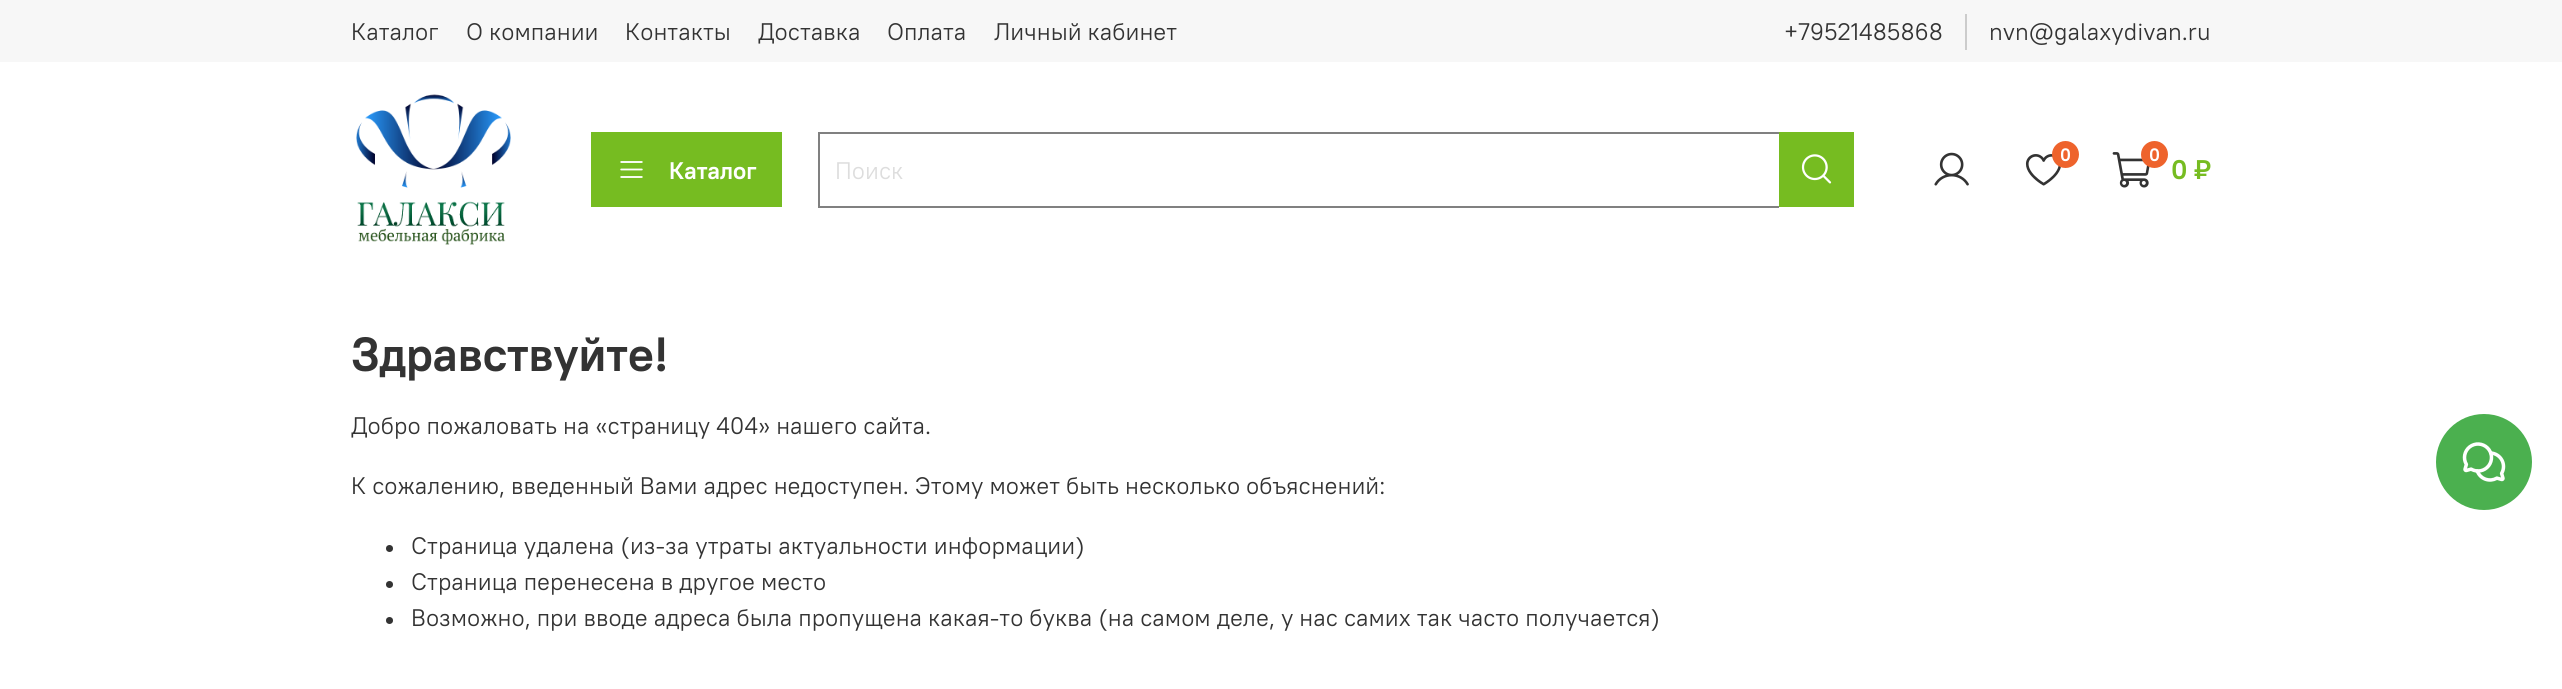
#include <cairo/cairo.h>
#include <math.h>
#include <stddef.h>

typedef struct { double x, y; const char *s; } line_t;
typedef struct { double x, y, w, h; unsigned color; } box_t;
static cairo_t *cr;

static void rgb(unsigned color)
{
	cairo_set_source_rgb(cr, (color >> 16) / 255.0, (color >> 8 & 255) / 255.0, (color & 255) / 255.0);
}

static void image(const char *path, double x, double y, double w, double h)
{
	cairo_surface_t *image = cairo_image_surface_create_from_png(path);
	cairo_save(cr);
	cairo_set_source_surface(cr, image, x, y);
	cairo_rectangle(cr, x, y, w, h);
	cairo_fill(cr);
	cairo_restore(cr);
	cairo_surface_destroy(image);
}

int main(void) {
	cairo_surface_t *surface = cairo_image_surface_create(CAIRO_FORMAT_RGB24, 2562, 689);
	cr = cairo_create(surface);
	cairo_font_options_t *options = cairo_font_options_create();
	cairo_font_options_set_hint_metrics(options, CAIRO_HINT_METRICS_OFF);
	cairo_font_options_set_hint_style(options, CAIRO_HINT_STYLE_NONE);
	cairo_set_font_options(cr, options);
	cairo_set_miter_limit(cr, 4);
	rgb(0xffffff);
	cairo_paint(cr);
	rgb(0xf7f7f7);
	cairo_rectangle(cr, 0, 0, 2562, 62);
	cairo_fill(cr);
	rgb(0xcccccc);
	cairo_rectangle(cr, 1965, 14, 2, 36);
	cairo_fill(cr);
	image("img/1.png", 356, 94, 155, 151);
	rgb(0x76bc21);
	cairo_rectangle(cr, 591, 132, 191, 75);
	cairo_fill(cr);
	image("img/2.png", 620, 161, 23, 17);
	{
		static const box_t items[] = {
			{818, 132, 961, 2, 0x808080},
			{818, 206, 961, 2, 0x808080},
			{818, 132, 2, 75, 0x808080},
			{1779, 132, 75, 75, 0x76bc21},
		};
		for (size_t i = 0; i < sizeof items / sizeof *items; i++) {
			rgb(items[i].color);
			cairo_rectangle(cr, items[i].x, items[i].y, items[i].w, items[i].h);
			cairo_fill(cr);
		}
	}
	image("img/3.png", 1801, 154, 31, 30);
	image("img/4.png", 1934, 152, 35, 34);
	image("img/5.png", 2025, 154, 36, 32);
	rgb(0xee632c);
	cairo_arc(cr, 2065.5, 154.5, 13.5, 0, 2 * M_PI);
	cairo_fill(cr);
	image("img/6.png", 2112, 152, 38, 36);
	cairo_arc(cr, 2154.5, 154.5, 13.5, 0, 2 * M_PI);
	cairo_fill(cr);
	rgb(0x333333);
	cairo_arc(cr, 389.5, 548.5, 3.5, 0, 2 * M_PI);
	cairo_fill(cr);
	cairo_arc(cr, 389.5, 584.5, 3.5, 0, 2 * M_PI);
	cairo_fill(cr);
	cairo_arc(cr, 389.5, 620.5, 3.5, 0, 2 * M_PI);
	cairo_fill(cr);
	rgb(0x4bb04f);
	cairo_arc(cr, 2484, 462, 48, 0, 2 * M_PI);
	cairo_fill(cr);
	image("img/7.png", 2462, 442, 44, 40);
	cairo_select_font_face(cr, "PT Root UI", CAIRO_FONT_SLANT_NORMAL, CAIRO_FONT_WEIGHT_NORMAL);
	cairo_set_font_size(cr, 24);
	rgb(0x333333);
	{
		static const line_t items[] = {
			{351, 40, "Каталог"},
			{466, 40, "О компании"},
			{625, 40, "Контакты"},
			{758, 40, "Доставка"},
			{887, 40, "Оплата"},
			{994, 40, "Личный кабинет"},
			{1784, 40, "+79521485868"},
			{1989, 40, "nvn@galaxydivan.ru"},
		};
		for (size_t i = 0; i < sizeof items / sizeof *items; i++) {
			cairo_move_to(cr, items[i].x, items[i].y);
			cairo_show_text(cr, items[i].s);
		}
	}
	cairo_select_font_face(cr, "PT Root UI", CAIRO_FONT_SLANT_NORMAL, CAIRO_FONT_WEIGHT_BOLD);
	rgb(0xffffff);
	cairo_move_to(cr, 669, 179);
	cairo_show_text(cr, "Каталог");
	cairo_select_font_face(cr, "PT Root UI", CAIRO_FONT_SLANT_NORMAL, CAIRO_FONT_WEIGHT_NORMAL);
	rgb(0xdddddd);
	cairo_move_to(cr, 835, 179);
	cairo_show_text(cr, "Поиск");
	cairo_select_font_face(cr, "PT Root UI", CAIRO_FONT_SLANT_NORMAL, CAIRO_FONT_WEIGHT_BOLD);
	cairo_set_font_size(cr, 18);
	rgb(0xffffff);
	cairo_move_to(cr, 2060, 161);
	cairo_show_text(cr, "0");
	cairo_move_to(cr, 2149, 161);
	cairo_show_text(cr, "0");
	cairo_set_font_size(cr, 27);
	rgb(0x76bc21);
	cairo_move_to(cr, 2171, 179);
	cairo_show_text(cr, "0 ₽");
	cairo_set_font_size(cr, 48);
	rgb(0x333333);
	cairo_move_to(cr, 351, 371);
	cairo_show_text(cr, "Здравствуйте!");
	cairo_select_font_face(cr, "PT Root UI", CAIRO_FONT_SLANT_NORMAL, CAIRO_FONT_WEIGHT_NORMAL);
	cairo_set_font_size(cr, 24);
	{
		static const line_t items[] = {
			{351, 434, "Добро пожаловать на «страницу 404» нашего сайта."},
			{351, 494, "К сожалению, введенный Вами адрес недоступен. Этому может быть несколько объяснений:"},
			{411, 554, "Страница удалена (из-за утраты актуальности информации)"},
			{411, 590, "Страница перенесена в другое место"},
			{411, 626, "Возможно, при вводе адреса была пропущена какая-то буква (на самом деле, у нас самих так часто получается)"},
		};
		for (size_t i = 0; i < sizeof items / sizeof *items; i++) {
			cairo_move_to(cr, items[i].x, items[i].y);
			cairo_show_text(cr, items[i].s);
		}
	}
	cairo_surface_write_to_png(surface, "page.png");
	cairo_font_options_destroy(options);
	cairo_destroy(cr);
	cairo_surface_destroy(surface);
	return 0;
}
